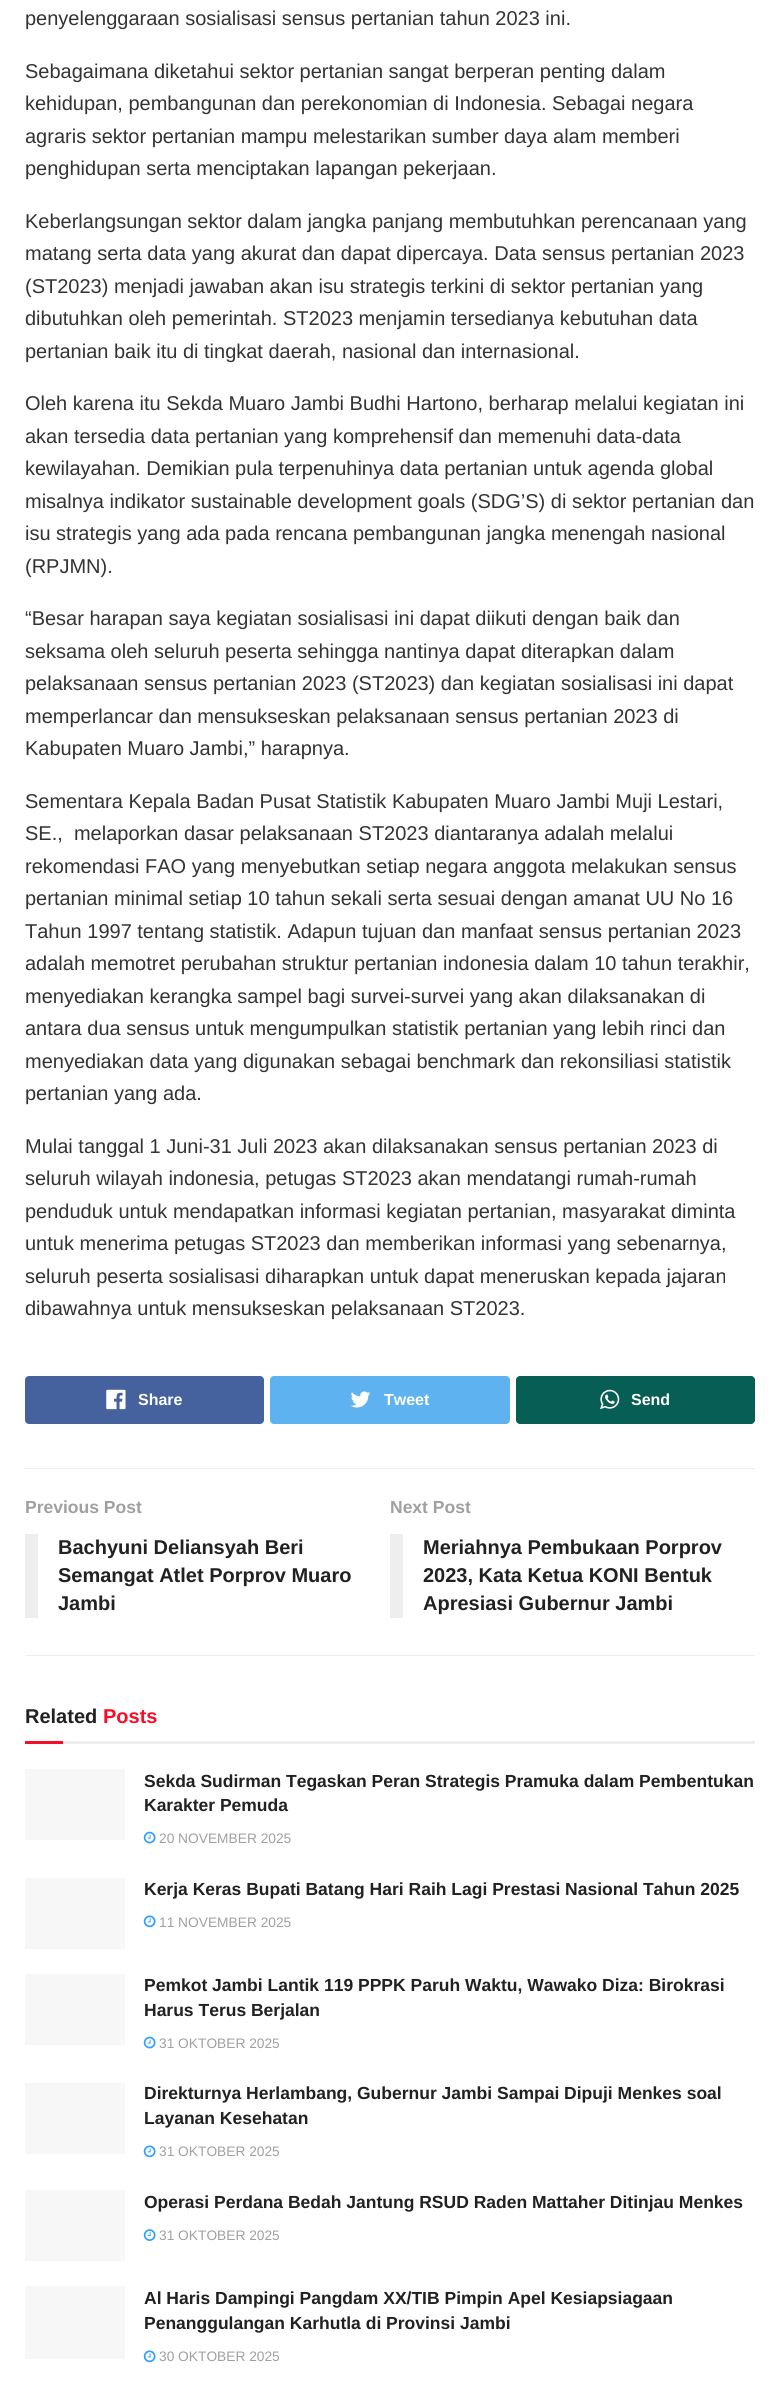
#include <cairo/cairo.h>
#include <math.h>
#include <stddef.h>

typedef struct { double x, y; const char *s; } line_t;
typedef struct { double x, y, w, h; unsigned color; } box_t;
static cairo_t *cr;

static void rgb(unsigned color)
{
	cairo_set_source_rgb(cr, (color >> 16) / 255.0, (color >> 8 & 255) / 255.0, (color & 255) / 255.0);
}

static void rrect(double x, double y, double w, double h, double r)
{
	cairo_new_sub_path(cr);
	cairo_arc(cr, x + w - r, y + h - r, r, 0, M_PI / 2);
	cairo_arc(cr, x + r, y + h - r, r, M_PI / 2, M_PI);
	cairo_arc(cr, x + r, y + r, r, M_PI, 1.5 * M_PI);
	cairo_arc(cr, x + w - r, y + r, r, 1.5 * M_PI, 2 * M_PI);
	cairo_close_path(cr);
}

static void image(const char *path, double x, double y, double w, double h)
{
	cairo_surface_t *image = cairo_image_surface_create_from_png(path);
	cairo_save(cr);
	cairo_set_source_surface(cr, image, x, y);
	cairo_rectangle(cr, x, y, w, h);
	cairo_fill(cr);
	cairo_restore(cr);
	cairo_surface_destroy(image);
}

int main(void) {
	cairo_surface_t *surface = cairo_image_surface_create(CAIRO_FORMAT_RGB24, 779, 2405);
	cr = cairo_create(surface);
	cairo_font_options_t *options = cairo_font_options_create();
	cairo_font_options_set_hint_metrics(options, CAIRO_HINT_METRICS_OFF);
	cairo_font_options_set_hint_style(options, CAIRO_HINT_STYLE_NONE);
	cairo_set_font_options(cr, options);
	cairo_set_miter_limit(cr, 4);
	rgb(0xffffff);
	cairo_paint(cr);
	rgb(0x45629f);
	rrect(25, 1376, 239, 48, 4);
	cairo_fill(cr);
	image("img/1.png", 106, 1389, 20, 21);
	rgb(0x5eb2ef);
	rrect(270, 1376, 240, 48, 4);
	cairo_fill(cr);
	image("img/2.png", 350, 1391, 21, 17);
	rgb(0x075e54);
	rrect(516, 1376, 239, 48, 4);
	cairo_fill(cr);
	image("img/3.png", 600, 1389, 20, 21);
	{
		static const box_t items[] = {
			{25, 1468, 730, 1, 0xeeeeee},
			{25, 1655, 730, 1, 0xeeeeee},
			{25, 1534, 13, 84, 0xeeeeee},
			{390, 1534, 13, 84, 0xeeeeee},
			{63, 1741, 692, 3, 0xeeeeee},
			{25, 1741, 38, 3, 0xf70d28},
			{25, 1769, 100, 71, 0xf7f7f7},
		};
		for (size_t i = 0; i < sizeof items / sizeof *items; i++) {
			rgb(items[i].color);
			cairo_rectangle(cr, items[i].x, items[i].y, items[i].w, items[i].h);
			cairo_fill(cr);
		}
	}
	image("img/4.png", 143, 1831, 13, 13);
	cairo_rectangle(cr, 25, 1878, 100, 71);
	cairo_fill(cr);
	image("img/5.png", 143, 1915, 13, 13);
	cairo_rectangle(cr, 25, 1974, 100, 71);
	cairo_fill(cr);
	image("img/4.png", 143, 2036, 13, 13);
	cairo_rectangle(cr, 25, 2083, 100, 71);
	cairo_fill(cr);
	image("img/5.png", 143, 2145, 13, 13);
	cairo_rectangle(cr, 25, 2190, 100, 71);
	cairo_fill(cr);
	image("img/6.png", 143, 2229, 13, 12);
	cairo_rectangle(cr, 25, 2286, 100, 73);
	cairo_fill(cr);
	image("img/5.png", 143, 2350, 13, 13);
	cairo_select_font_face(cr, "Liberation Sans", CAIRO_FONT_SLANT_NORMAL, CAIRO_FONT_WEIGHT_NORMAL);
	cairo_set_font_size(cr, 20);
	rgb(0x333333);
	{
		static const line_t items[] = {
			{25, 25, "penyelenggaraan sosialisasi sensus pertanian tahun 2023 ini."},
			{25, 78, "Sebagaimana diketahui sektor pertanian sangat berperan penting dalam"},
			{25, 110, "kehidupan, pembangunan dan perekonomian di Indonesia. Sebagai negara"},
			{25, 143, "agraris sektor pertanian mampu melestarikan sumber daya alam memberi"},
			{25, 175, "penghidupan serta menciptakan lapangan pekerjaan."},
			{25, 228, "Keberlangsungan sektor dalam jangka panjang membutuhkan perencanaan yang"},
			{25, 260, "matang serta data yang akurat dan dapat dipercaya. Data sensus pertanian 2023"},
			{25, 293, "(ST2023) menjadi jawaban akan isu strategis terkini di sektor pertanian yang"},
			{25, 325, "dibutuhkan oleh pemerintah. ST2023 menjamin tersedianya kebutuhan data"},
			{25, 358, "pertanian baik itu di tingkat daerah, nasional dan internasional."},
			{25, 410, "Oleh karena itu Sekda Muaro Jambi Budhi Hartono, berharap melalui kegiatan ini"},
			{25, 443, "akan tersedia data pertanian yang komprehensif dan memenuhi data-data"},
			{25, 475, "kewilayahan. Demikian pula terpenuhinya data pertanian untuk agenda global"},
			{25, 508, "misalnya indikator sustainable development goals (SDG’S) di sektor pertanian dan"},
			{25, 540, "isu strategis yang ada pada rencana pembangunan jangka menengah nasional"},
			{25, 573, "(RPJMN)."},
			{25, 625, "“Besar harapan saya kegiatan sosialisasi ini dapat diikuti dengan baik dan"},
			{25, 658, "seksama oleh seluruh peserta sehingga nantinya dapat diterapkan dalam"},
			{25, 690, "pelaksanaan sensus pertanian 2023 (ST2023) dan kegiatan sosialisasi ini dapat"},
			{25, 723, "memperlancar dan mensukseskan pelaksanaan sensus pertanian 2023 di"},
			{25, 755, "Kabupaten Muaro Jambi,” harapnya."},
			{25, 808, "Sementara Kepala Badan Pusat Statistik Kabupaten Muaro Jambi Muji Lestari,"},
			{25, 840, "SE.,  melaporkan dasar pelaksanaan ST2023 diantaranya adalah melalui"},
			{25, 873, "rekomendasi FAO yang menyebutkan setiap negara anggota melakukan sensus"},
			{25, 905, "pertanian minimal setiap 10 tahun sekali serta sesuai dengan amanat UU No 16"},
			{25, 938, "Tahun 1997 tentang statistik. Adapun tujuan dan manfaat sensus pertanian 2023"},
			{25, 970, "adalah memotret perubahan struktur pertanian indonesia dalam 10 tahun terakhir,"},
			{25, 1003, "menyediakan kerangka sampel bagi survei-survei yang akan dilaksanakan di"},
			{25, 1035, "antara dua sensus untuk mengumpulkan statistik pertanian yang lebih rinci dan"},
			{25, 1068, "menyediakan data yang digunakan sebagai benchmark dan rekonsiliasi statistik"},
			{25, 1100, "pertanian yang ada."},
			{25, 1153, "Mulai tanggal 1 Juni-31 Juli 2023 akan dilaksanakan sensus pertanian 2023 di"},
			{25, 1185, "seluruh wilayah indonesia, petugas ST2023 akan mendatangi rumah-rumah"},
			{25, 1218, "penduduk untuk mendapatkan informasi kegiatan pertanian, masyarakat diminta"},
			{25, 1250, "untuk menerima petugas ST2023 dan memberikan informasi yang sebenarnya,"},
			{25, 1283, "seluruh peserta sosialisasi diharapkan untuk dapat meneruskan kepada jajaran"},
			{25, 1315, "dibawahnya untuk mensukseskan pelaksanaan ST2023."},
		};
		for (size_t i = 0; i < sizeof items / sizeof *items; i++) {
			cairo_move_to(cr, items[i].x, items[i].y);
			cairo_show_text(cr, items[i].s);
		}
	}
	cairo_select_font_face(cr, "Liberation Sans", CAIRO_FONT_SLANT_NORMAL, CAIRO_FONT_WEIGHT_BOLD);
	cairo_set_font_size(cr, 16);
	rgb(0xffffff);
	{
		static const line_t items[] = {
			{138, 1405, "Share"},
			{384, 1405, "Tweet"},
			{631, 1405, "Send"},
		};
		for (size_t i = 0; i < sizeof items / sizeof *items; i++) {
			cairo_move_to(cr, items[i].x, items[i].y);
			cairo_show_text(cr, items[i].s);
		}
	}
	cairo_set_font_size(cr, 17.5);
	rgb(0xa0a0a0);
	cairo_move_to(cr, 25, 1513);
	cairo_show_text(cr, "Previous Post");
	cairo_set_font_size(cr, 20);
	rgb(0x212121);
	{
		static const line_t items[] = {
			{58, 1554, "Bachyuni Deliansyah Beri"},
			{58, 1582, "Semangat Atlet Porprov Muaro"},
			{58, 1610, "Jambi"},
		};
		for (size_t i = 0; i < sizeof items / sizeof *items; i++) {
			cairo_move_to(cr, items[i].x, items[i].y);
			cairo_show_text(cr, items[i].s);
		}
	}
	cairo_set_font_size(cr, 17.5);
	rgb(0xa0a0a0);
	cairo_move_to(cr, 390, 1513);
	cairo_show_text(cr, "Next Post");
	cairo_set_font_size(cr, 20);
	rgb(0x212121);
	{
		static const line_t items[] = {
			{423, 1554, "Meriahnya Pembukaan Porprov"},
			{423, 1582, "2023, Kata Ketua KONI Bentuk"},
			{423, 1610, "Apresiasi Gubernur Jambi"},
			{25, 1723, "Related"},
		};
		for (size_t i = 0; i < sizeof items / sizeof *items; i++) {
			cairo_move_to(cr, items[i].x, items[i].y);
			cairo_show_text(cr, items[i].s);
		}
	}
	rgb(0xf70d28);
	cairo_move_to(cr, 103, 1723);
	cairo_show_text(cr, "Posts");
	cairo_set_font_size(cr, 17.5);
	rgb(0x212121);
	cairo_move_to(cr, 144, 1787);
	cairo_show_text(cr, "Sekda Sudirman Tegaskan Peran Strategis Pramuka dalam Pembentukan");
	cairo_move_to(cr, 144, 1811);
	cairo_show_text(cr, "Karakter Pemuda");
	cairo_select_font_face(cr, "Liberation Sans", CAIRO_FONT_SLANT_NORMAL, CAIRO_FONT_WEIGHT_NORMAL);
	cairo_set_font_size(cr, 13.75);
	rgb(0xa0a0a0);
	cairo_move_to(cr, 159, 1843);
	cairo_show_text(cr, "20 NOVEMBER 2025");
	cairo_select_font_face(cr, "Liberation Sans", CAIRO_FONT_SLANT_NORMAL, CAIRO_FONT_WEIGHT_BOLD);
	cairo_set_font_size(cr, 17.5);
	rgb(0x212121);
	cairo_move_to(cr, 144, 1895);
	cairo_show_text(cr, "Kerja Keras Bupati Batang Hari Raih Lagi Prestasi Nasional Tahun 2025");
	cairo_select_font_face(cr, "Liberation Sans", CAIRO_FONT_SLANT_NORMAL, CAIRO_FONT_WEIGHT_NORMAL);
	cairo_set_font_size(cr, 13.75);
	rgb(0xa0a0a0);
	cairo_move_to(cr, 159, 1927);
	cairo_show_text(cr, "11 NOVEMBER 2025");
	cairo_select_font_face(cr, "Liberation Sans", CAIRO_FONT_SLANT_NORMAL, CAIRO_FONT_WEIGHT_BOLD);
	cairo_set_font_size(cr, 17.5);
	rgb(0x212121);
	cairo_move_to(cr, 144, 1991);
	cairo_show_text(cr, "Pemkot Jambi Lantik 119 PPPK Paruh Waktu, Wawako Diza: Birokrasi");
	cairo_move_to(cr, 144, 2016);
	cairo_show_text(cr, "Harus Terus Berjalan");
	cairo_select_font_face(cr, "Liberation Sans", CAIRO_FONT_SLANT_NORMAL, CAIRO_FONT_WEIGHT_NORMAL);
	cairo_set_font_size(cr, 13.75);
	rgb(0xa0a0a0);
	cairo_move_to(cr, 159, 2048);
	cairo_show_text(cr, "31 OKTOBER 2025");
	cairo_select_font_face(cr, "Liberation Sans", CAIRO_FONT_SLANT_NORMAL, CAIRO_FONT_WEIGHT_BOLD);
	cairo_set_font_size(cr, 17.5);
	rgb(0x212121);
	cairo_move_to(cr, 144, 2099);
	cairo_show_text(cr, "Direkturnya Herlambang, Gubernur Jambi Sampai Dipuji Menkes soal");
	cairo_move_to(cr, 144, 2124);
	cairo_show_text(cr, "Layanan Kesehatan");
	cairo_select_font_face(cr, "Liberation Sans", CAIRO_FONT_SLANT_NORMAL, CAIRO_FONT_WEIGHT_NORMAL);
	cairo_set_font_size(cr, 13.75);
	rgb(0xa0a0a0);
	cairo_move_to(cr, 159, 2156);
	cairo_show_text(cr, "31 OKTOBER 2025");
	cairo_select_font_face(cr, "Liberation Sans", CAIRO_FONT_SLANT_NORMAL, CAIRO_FONT_WEIGHT_BOLD);
	cairo_set_font_size(cr, 17.5);
	rgb(0x212121);
	cairo_move_to(cr, 144, 2208);
	cairo_show_text(cr, "Operasi Perdana Bedah Jantung RSUD Raden Mattaher Ditinjau Menkes");
	cairo_select_font_face(cr, "Liberation Sans", CAIRO_FONT_SLANT_NORMAL, CAIRO_FONT_WEIGHT_NORMAL);
	cairo_set_font_size(cr, 13.75);
	rgb(0xa0a0a0);
	cairo_move_to(cr, 159, 2240);
	cairo_show_text(cr, "31 OKTOBER 2025");
	cairo_select_font_face(cr, "Liberation Sans", CAIRO_FONT_SLANT_NORMAL, CAIRO_FONT_WEIGHT_BOLD);
	cairo_set_font_size(cr, 17.5);
	rgb(0x212121);
	cairo_move_to(cr, 144, 2304);
	cairo_show_text(cr, "Al Haris Dampingi Pangdam XX/TIB Pimpin Apel Kesiapsiagaan");
	cairo_move_to(cr, 144, 2329);
	cairo_show_text(cr, "Penanggulangan Karhutla di Provinsi Jambi");
	cairo_select_font_face(cr, "Liberation Sans", CAIRO_FONT_SLANT_NORMAL, CAIRO_FONT_WEIGHT_NORMAL);
	cairo_set_font_size(cr, 13.75);
	rgb(0xa0a0a0);
	cairo_move_to(cr, 159, 2361);
	cairo_show_text(cr, "30 OKTOBER 2025");
	cairo_surface_write_to_png(surface, "page.png");
	cairo_font_options_destroy(options);
	cairo_destroy(cr);
	cairo_surface_destroy(surface);
	return 0;
}
